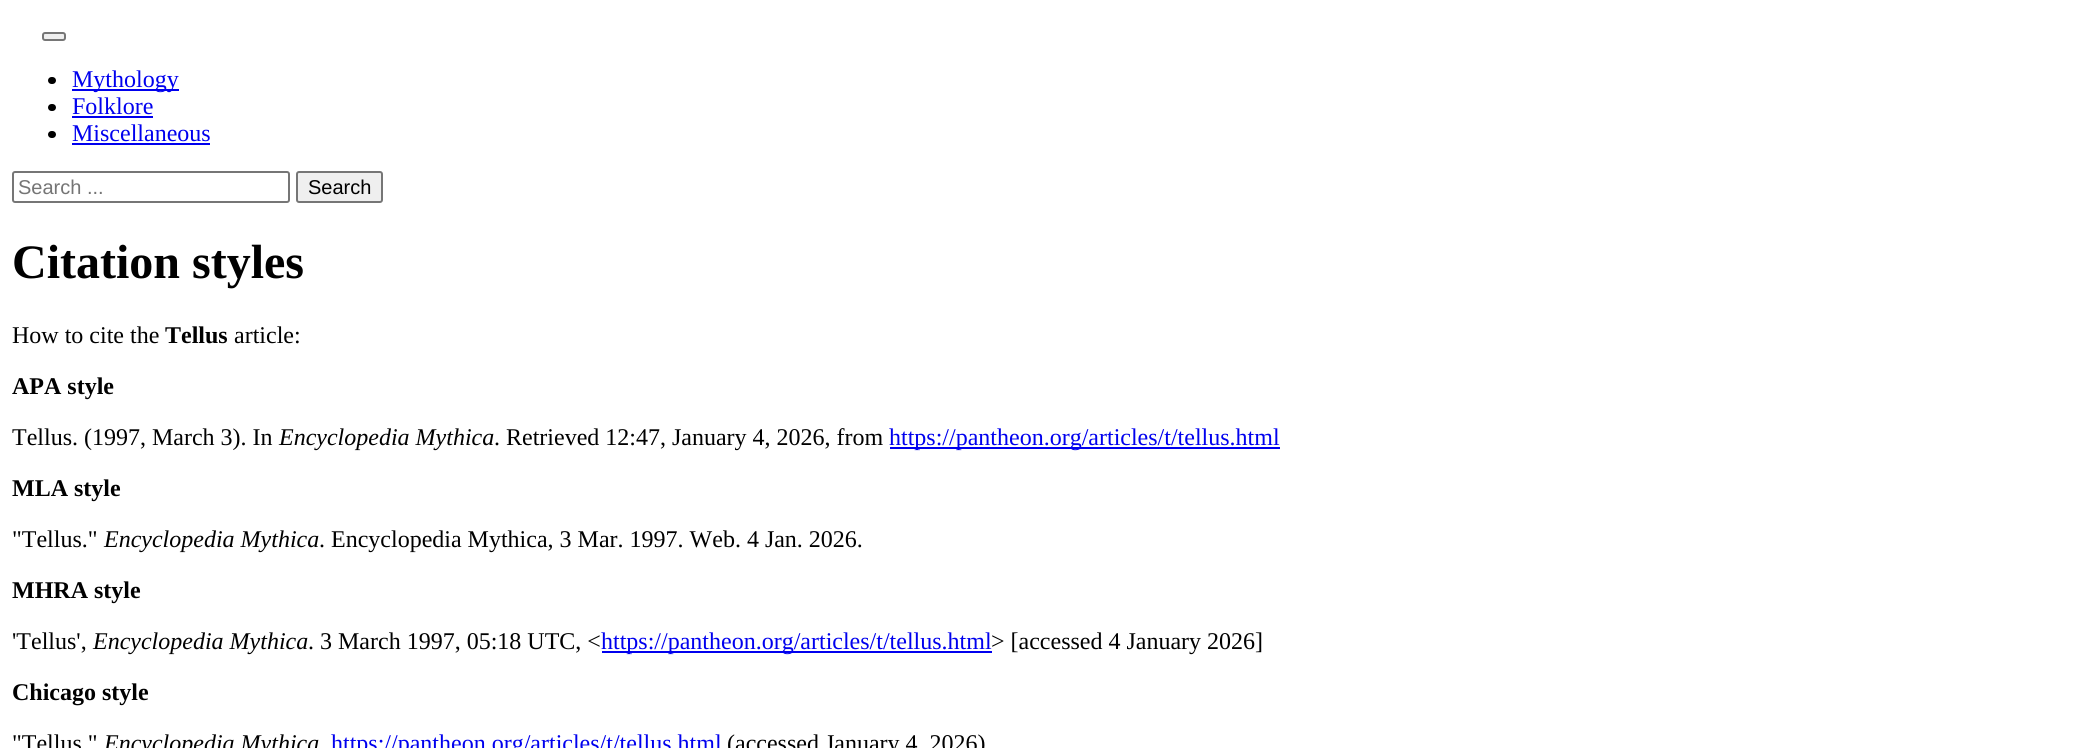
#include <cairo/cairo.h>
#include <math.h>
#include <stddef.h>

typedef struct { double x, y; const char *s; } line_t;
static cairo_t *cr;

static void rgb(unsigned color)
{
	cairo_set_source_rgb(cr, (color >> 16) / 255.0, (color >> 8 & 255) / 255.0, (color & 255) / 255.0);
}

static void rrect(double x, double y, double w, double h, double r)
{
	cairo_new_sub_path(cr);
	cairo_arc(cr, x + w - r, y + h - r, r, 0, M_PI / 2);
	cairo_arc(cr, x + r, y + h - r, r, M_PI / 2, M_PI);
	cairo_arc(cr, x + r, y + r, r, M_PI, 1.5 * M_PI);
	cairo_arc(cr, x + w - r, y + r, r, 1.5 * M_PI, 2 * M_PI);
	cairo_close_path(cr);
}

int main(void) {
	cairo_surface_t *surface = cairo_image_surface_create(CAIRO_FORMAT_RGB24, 2073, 748);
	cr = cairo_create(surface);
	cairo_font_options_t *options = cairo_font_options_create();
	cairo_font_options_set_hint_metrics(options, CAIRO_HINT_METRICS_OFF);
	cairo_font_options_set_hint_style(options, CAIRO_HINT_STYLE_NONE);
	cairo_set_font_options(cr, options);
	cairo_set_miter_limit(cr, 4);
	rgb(0xffffff);
	cairo_paint(cr);
	rgb(0xefefef);
	rrect(43, 33, 22, 7, 2);
	cairo_fill_preserve(cr);
	rgb(0x767676);
	cairo_stroke(cr);
	rgb(0x000000);
	rrect(48, 77, 8, 7, 3.5);
	cairo_fill(cr);
	rgb(0x0000ee);
	cairo_rectangle(cr, 72, 89, 107, 2);
	cairo_fill(cr);
	rgb(0x000000);
	rrect(48, 104, 8, 7, 3.5);
	cairo_fill(cr);
	rgb(0x0000ee);
	cairo_rectangle(cr, 72, 116, 81, 2);
	cairo_fill(cr);
	rgb(0x000000);
	rrect(48, 131, 8, 7, 3.5);
	cairo_fill(cr);
	rgb(0x0000ee);
	cairo_rectangle(cr, 72, 143, 138, 2);
	cairo_fill(cr);
	rrect(13, 172, 276, 30, 2);
	rgb(0x767676);
	cairo_stroke(cr);
	rgb(0xefefef);
	rrect(297, 172, 85, 30, 2);
	cairo_fill_preserve(cr);
	rgb(0x767676);
	cairo_stroke(cr);
	rgb(0x0000ee);
	cairo_rectangle(cr, 890, 447, 390, 2);
	cairo_fill(cr);
	cairo_rectangle(cr, 602, 651, 390, 2);
	cairo_fill(cr);
	cairo_select_font_face(cr, "Liberation Serif", CAIRO_FONT_SLANT_NORMAL, CAIRO_FONT_WEIGHT_NORMAL);
	cairo_set_font_size(cr, 24);
	{
		static const line_t items[] = {
			{72, 87, "Mythology"},
			{72, 114, "Folklore"},
			{72, 141, "Miscellaneous"},
		};
		for (size_t i = 0; i < sizeof items / sizeof *items; i++) {
			cairo_move_to(cr, items[i].x, items[i].y);
			cairo_show_text(cr, items[i].s);
		}
	}
	cairo_select_font_face(cr, "Liberation Sans", CAIRO_FONT_SLANT_NORMAL, CAIRO_FONT_WEIGHT_NORMAL);
	cairo_set_font_size(cr, 20);
	rgb(0x757575);
	cairo_move_to(cr, 18, 194);
	cairo_show_text(cr, "Search ...");
	rgb(0x000000);
	cairo_move_to(cr, 308, 194);
	cairo_show_text(cr, "Search");
	cairo_select_font_face(cr, "Liberation Serif", CAIRO_FONT_SLANT_NORMAL, CAIRO_FONT_WEIGHT_BOLD);
	cairo_set_font_size(cr, 48);
	cairo_move_to(cr, 12, 278);
	cairo_show_text(cr, "Citation styles");
	cairo_select_font_face(cr, "Liberation Serif", CAIRO_FONT_SLANT_NORMAL, CAIRO_FONT_WEIGHT_NORMAL);
	cairo_set_font_size(cr, 24);
	cairo_move_to(cr, 12, 343);
	cairo_show_text(cr, "How to cite the");
	cairo_select_font_face(cr, "Liberation Serif", CAIRO_FONT_SLANT_NORMAL, CAIRO_FONT_WEIGHT_BOLD);
	cairo_move_to(cr, 165, 343);
	cairo_show_text(cr, "Tellus");
	cairo_select_font_face(cr, "Liberation Serif", CAIRO_FONT_SLANT_NORMAL, CAIRO_FONT_WEIGHT_NORMAL);
	cairo_move_to(cr, 234, 343);
	cairo_show_text(cr, "article:");
	cairo_select_font_face(cr, "Liberation Serif", CAIRO_FONT_SLANT_NORMAL, CAIRO_FONT_WEIGHT_BOLD);
	cairo_move_to(cr, 12, 394);
	cairo_show_text(cr, "APA style");
	cairo_select_font_face(cr, "Liberation Serif", CAIRO_FONT_SLANT_NORMAL, CAIRO_FONT_WEIGHT_NORMAL);
	cairo_move_to(cr, 12, 445);
	cairo_show_text(cr, "Tellus. (1997, March 3). In");
	cairo_select_font_face(cr, "Liberation Serif", CAIRO_FONT_SLANT_ITALIC, CAIRO_FONT_WEIGHT_NORMAL);
	cairo_move_to(cr, 279, 445);
	cairo_show_text(cr, "Encyclopedia Mythica");
	cairo_select_font_face(cr, "Liberation Serif", CAIRO_FONT_SLANT_NORMAL, CAIRO_FONT_WEIGHT_NORMAL);
	cairo_move_to(cr, 494, 445);
	cairo_show_text(cr, ". Retrieved 12:47, January 4, 2026, from");
	rgb(0x0000ee);
	cairo_move_to(cr, 889, 445);
	cairo_show_text(cr, "https://pantheon.org/articles/t/tellus.html");
	cairo_select_font_face(cr, "Liberation Serif", CAIRO_FONT_SLANT_NORMAL, CAIRO_FONT_WEIGHT_BOLD);
	rgb(0x000000);
	cairo_move_to(cr, 12, 496);
	cairo_show_text(cr, "MLA style");
	cairo_select_font_face(cr, "Liberation Serif", CAIRO_FONT_SLANT_NORMAL, CAIRO_FONT_WEIGHT_NORMAL);
	cairo_move_to(cr, 12, 547);
	cairo_show_text(cr, "\"Tellus.\"");
	cairo_select_font_face(cr, "Liberation Serif", CAIRO_FONT_SLANT_ITALIC, CAIRO_FONT_WEIGHT_NORMAL);
	cairo_move_to(cr, 104, 547);
	cairo_show_text(cr, "Encyclopedia Mythica");
	cairo_select_font_face(cr, "Liberation Serif", CAIRO_FONT_SLANT_NORMAL, CAIRO_FONT_WEIGHT_NORMAL);
	cairo_move_to(cr, 319, 547);
	cairo_show_text(cr, ". Encyclopedia Mythica, 3 Mar. 1997. Web. 4 Jan. 2026.");
	cairo_select_font_face(cr, "Liberation Serif", CAIRO_FONT_SLANT_NORMAL, CAIRO_FONT_WEIGHT_BOLD);
	cairo_move_to(cr, 12, 598);
	cairo_show_text(cr, "MHRA style");
	cairo_select_font_face(cr, "Liberation Serif", CAIRO_FONT_SLANT_NORMAL, CAIRO_FONT_WEIGHT_NORMAL);
	cairo_move_to(cr, 12, 649);
	cairo_show_text(cr, "'Tellus',");
	cairo_select_font_face(cr, "Liberation Serif", CAIRO_FONT_SLANT_ITALIC, CAIRO_FONT_WEIGHT_NORMAL);
	cairo_move_to(cr, 93, 649);
	cairo_show_text(cr, "Encyclopedia Mythica");
	cairo_select_font_face(cr, "Liberation Serif", CAIRO_FONT_SLANT_NORMAL, CAIRO_FONT_WEIGHT_NORMAL);
	cairo_move_to(cr, 308, 649);
	cairo_show_text(cr, ". 3 March 1997, 05:18 UTC, <");
	rgb(0x0000ee);
	cairo_move_to(cr, 601, 649);
	cairo_show_text(cr, "https://pantheon.org/articles/t/tellus.html");
	rgb(0x000000);
	cairo_move_to(cr, 991, 649);
	cairo_show_text(cr, "> [accessed 4 January 2026]");
	cairo_select_font_face(cr, "Liberation Serif", CAIRO_FONT_SLANT_NORMAL, CAIRO_FONT_WEIGHT_BOLD);
	cairo_move_to(cr, 12, 700);
	cairo_show_text(cr, "Chicago style");
	cairo_select_font_face(cr, "Liberation Serif", CAIRO_FONT_SLANT_NORMAL, CAIRO_FONT_WEIGHT_NORMAL);
	cairo_move_to(cr, 12, 751);
	cairo_show_text(cr, "\"Tellus,\"");
	cairo_select_font_face(cr, "Liberation Serif", CAIRO_FONT_SLANT_ITALIC, CAIRO_FONT_WEIGHT_NORMAL);
	cairo_move_to(cr, 104, 751);
	cairo_show_text(cr, "Encyclopedia Mythica");
	cairo_select_font_face(cr, "Liberation Serif", CAIRO_FONT_SLANT_NORMAL, CAIRO_FONT_WEIGHT_NORMAL);
	rgb(0x0000ee);
	cairo_move_to(cr, 331, 751);
	cairo_show_text(cr, "https://pantheon.org/articles/t/tellus.html");
	rgb(0x000000);
	cairo_move_to(cr, 727, 751);
	cairo_show_text(cr, "(accessed January 4, 2026)");
	cairo_surface_write_to_png(surface, "page.png");
	cairo_font_options_destroy(options);
	cairo_destroy(cr);
	cairo_surface_destroy(surface);
	return 0;
}
